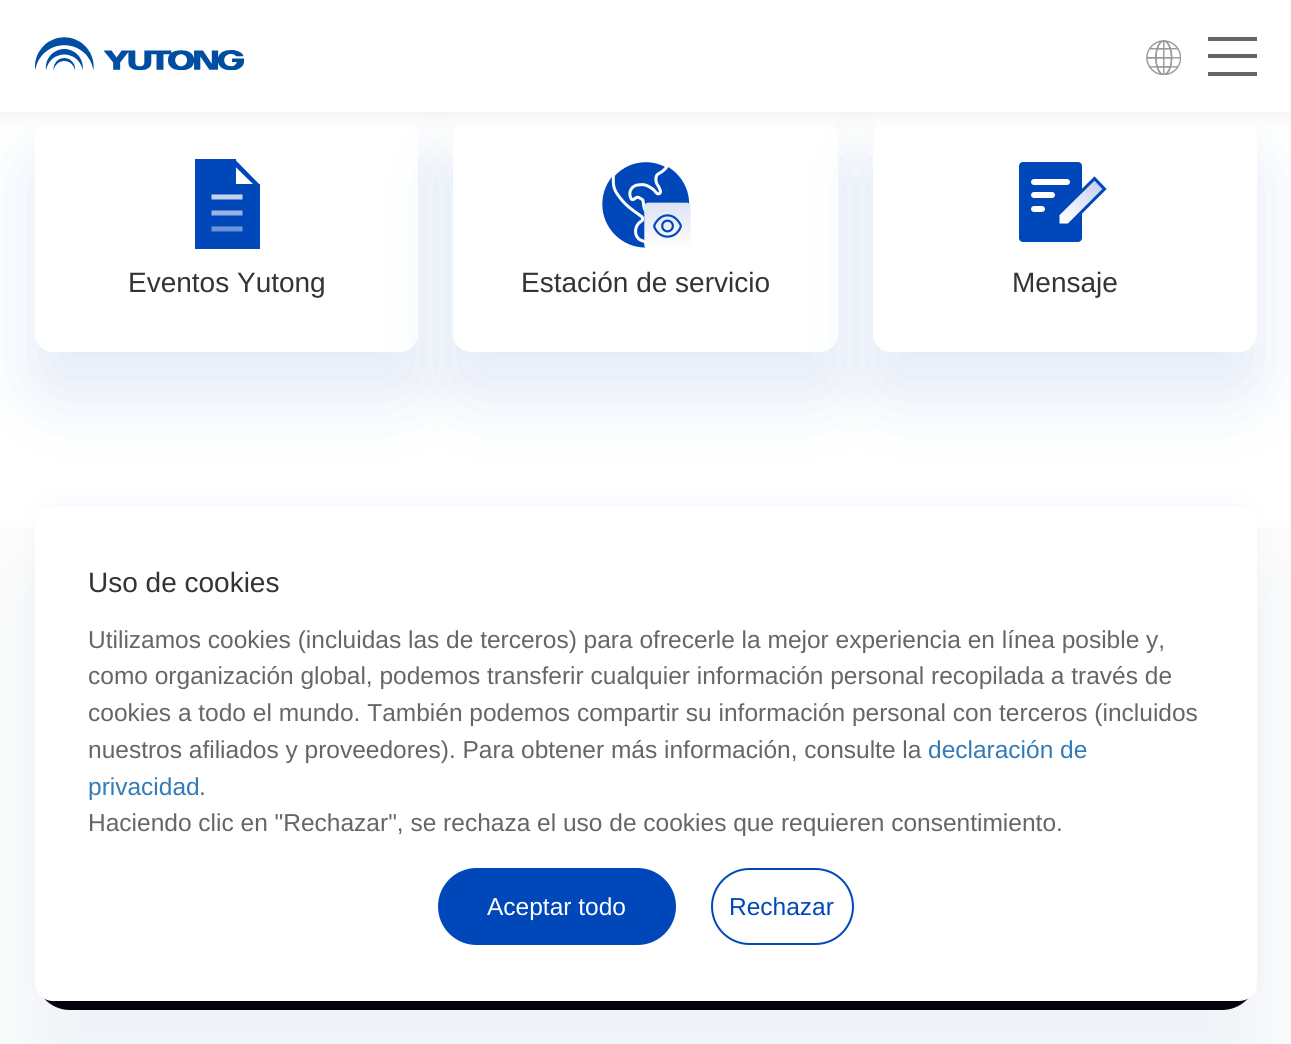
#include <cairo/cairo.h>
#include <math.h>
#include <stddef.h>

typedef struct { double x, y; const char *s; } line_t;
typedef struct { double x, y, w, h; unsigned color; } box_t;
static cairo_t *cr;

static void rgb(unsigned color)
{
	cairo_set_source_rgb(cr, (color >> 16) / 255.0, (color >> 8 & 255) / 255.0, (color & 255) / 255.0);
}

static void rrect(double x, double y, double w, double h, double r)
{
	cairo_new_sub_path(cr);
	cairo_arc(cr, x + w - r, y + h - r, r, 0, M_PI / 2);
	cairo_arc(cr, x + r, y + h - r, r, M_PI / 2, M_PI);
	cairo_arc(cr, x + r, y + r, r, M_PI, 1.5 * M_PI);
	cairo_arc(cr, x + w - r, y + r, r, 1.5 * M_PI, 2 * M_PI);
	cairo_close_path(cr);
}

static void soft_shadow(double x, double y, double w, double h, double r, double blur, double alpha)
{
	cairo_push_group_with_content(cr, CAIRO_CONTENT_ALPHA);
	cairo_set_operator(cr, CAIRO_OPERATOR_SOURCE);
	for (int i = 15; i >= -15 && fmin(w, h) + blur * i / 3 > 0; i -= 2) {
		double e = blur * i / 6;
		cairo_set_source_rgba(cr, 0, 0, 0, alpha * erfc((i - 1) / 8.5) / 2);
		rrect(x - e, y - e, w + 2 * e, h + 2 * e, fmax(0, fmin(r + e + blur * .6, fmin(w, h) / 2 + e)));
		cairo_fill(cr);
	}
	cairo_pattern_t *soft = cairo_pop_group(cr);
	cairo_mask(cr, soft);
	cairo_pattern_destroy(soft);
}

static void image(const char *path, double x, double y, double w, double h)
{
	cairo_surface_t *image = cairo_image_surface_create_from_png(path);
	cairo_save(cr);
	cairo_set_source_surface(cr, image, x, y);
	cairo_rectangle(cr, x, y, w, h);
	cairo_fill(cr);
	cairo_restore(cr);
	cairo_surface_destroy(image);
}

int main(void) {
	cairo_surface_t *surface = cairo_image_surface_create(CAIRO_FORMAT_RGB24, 1291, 1044);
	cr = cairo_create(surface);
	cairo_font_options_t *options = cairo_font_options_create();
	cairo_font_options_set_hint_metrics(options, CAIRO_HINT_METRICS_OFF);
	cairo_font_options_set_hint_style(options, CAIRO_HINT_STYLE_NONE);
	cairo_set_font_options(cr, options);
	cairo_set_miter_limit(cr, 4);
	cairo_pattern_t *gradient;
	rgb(0xffffff);
	cairo_paint(cr);
	rgb(0x1d56b9);
	soft_shadow(32, 156, 390, 241, 21, 35, 0.12);
	rgb(0xffffff);
	rrect(35, 117, 383, 235, 18);
	cairo_fill(cr);
	rgb(0x1d56b9);
	soft_shadow(450, 156, 392, 241, 21, 35, 0.12);
	rgb(0xffffff);
	rrect(453, 117, 385, 235, 18);
	cairo_fill(cr);
	rgb(0x1d56b9);
	soft_shadow(870, 156, 390, 241, 21, 35, 0.12);
	rgb(0xffffff);
	rrect(873, 117, 384, 235, 18);
	cairo_fill(cr);
	rgb(0x000000);
	soft_shadow(-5, -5, 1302, 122, 0, 9, 0.05);
	rgb(0xffffff);
	cairo_rectangle(cr, 0, 0, 1291, 112);
	cairo_fill(cr);
	image("img/1.png", 35, 37, 210, 34);
	image("img/2.png", 1146, 40, 35, 35);
	{
		static const box_t items[] = {
			{1208, 37, 49, 4, 0x666666},
			{1208, 54, 49, 4, 0x666666},
			{1208, 72, 49, 4, 0x666666},
		};
		for (size_t i = 0; i < sizeof items / sizeof *items; i++) {
			rgb(items[i].color);
			cairo_rectangle(cr, items[i].x, items[i].y, items[i].w, items[i].h);
			cairo_fill(cr);
		}
	}
	rgb(0x0047ba);
	cairo_set_fill_rule(cr, CAIRO_FILL_RULE_EVEN_ODD);
	cairo_new_path(cr);
	cairo_move_to(cr, 231, 162.5);
	cairo_line_to(cr, 257, 188);
	cairo_line_to(cr, 260, 185);
	cairo_line_to(cr, 234.5, 159);
	cairo_close_path(cr);
	cairo_fill(cr);
	cairo_new_path(cr);
	cairo_move_to(cr, 236, 159);
	cairo_line_to(cr, 195, 159);
	cairo_line_to(cr, 195, 249);
	cairo_line_to(cr, 260, 249);
	cairo_line_to(cr, 260, 184);
	cairo_line_to(cr, 236, 184);
	cairo_close_path(cr);
	cairo_fill(cr);
	gradient = cairo_pattern_create_linear(227, 195, 227, 231);
	cairo_pattern_add_color_stop_rgba(gradient, 0, 0.808, 0.835, 0.945, 1);
	cairo_pattern_add_color_stop_rgba(gradient, 1, 0.4, 0.569, 0.839, 1);
	cairo_set_source(cr, gradient);
	cairo_pattern_destroy(gradient);
	cairo_new_path(cr);
	cairo_move_to(cr, 211.5, 231.5);
	cairo_line_to(cr, 242.5, 231.5);
	cairo_line_to(cr, 242.5, 226.5);
	cairo_line_to(cr, 211.5, 226.5);
	cairo_close_path(cr);
	cairo_move_to(cr, 211.5, 215.5);
	cairo_line_to(cr, 242.5, 215.5);
	cairo_line_to(cr, 242.5, 210.5);
	cairo_line_to(cr, 211.5, 210.5);
	cairo_close_path(cr);
	cairo_move_to(cr, 211.5, 199.5);
	cairo_line_to(cr, 242.5, 199.5);
	cairo_line_to(cr, 242.5, 194.5);
	cairo_line_to(cr, 211.5, 194.5);
	cairo_close_path(cr);
	cairo_fill(cr);
	image("img/3.png", 602, 162, 89, 86);
	rgb(0x0047ba);
	rrect(1019, 162, 63, 80, 4);
	cairo_fill(cr);
	gradient = cairo_pattern_create_linear(1106, 170, 1064, 221);
	cairo_pattern_add_color_stop_rgba(gradient, 0, 0.718, 0.761, 0.922, 1);
	cairo_pattern_add_color_stop_rgba(gradient, 1, 1, 1, 1, 1);
	cairo_set_source(cr, gradient);
	cairo_pattern_destroy(gradient);
	cairo_set_fill_rule(cr, CAIRO_FILL_RULE_WINDING);
	cairo_new_path(cr);
	cairo_move_to(cr, 1058, 225);
	cairo_line_to(cr, 1058, 215);
	cairo_line_to(cr, 1094, 179);
	cairo_line_to(cr, 1105, 189);
	cairo_line_to(cr, 1069, 225);
	cairo_close_path(cr);
	cairo_fill(cr);
	cairo_new_path(cr);
	cairo_move_to(cr, 1058, 225);
	cairo_line_to(cr, 1058, 214.5);
	cairo_line_to(cr, 1094.5, 178.5);
	cairo_line_to(cr, 1104.5, 189);
	cairo_line_to(cr, 1068.5, 225);
	cairo_close_path(cr);
	rgb(0x0047ba);
	cairo_set_line_width(cr, 3);
	cairo_stroke(cr);
	rgb(0xffffff);
	rrect(1031, 179, 39, 6, 3);
	cairo_fill(cr);
	rrect(1031, 192, 24, 6, 3);
	cairo_fill(cr);
	rrect(1031, 206, 14, 6, 3);
	cairo_fill(cr);
	rgb(0xfbfbfb);
	cairo_rectangle(cr, 0, 527, 1291, 517);
	cairo_fill(cr);
	rgb(0x000000);
	rrect(35, 870, 1222, 140, 35);
	cairo_fill(cr);
	rgb(0x50a4ff);
	soft_shadow(35, 499, 1222, 495, 18, 9, 0.05);
	rgb(0x1d56b9);
	soft_shadow(35, 579, 1222, 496, 18, 29, 0.05);
	rgb(0xffffff);
	rrect(35, 506, 1222, 495, 18);
	cairo_fill(cr);
	rgb(0x0047ba);
	rrect(438, 868, 238, 77, 38.5);
	cairo_fill(cr);
	rrect(712, 869, 141, 75, 37.5);
	cairo_set_line_width(cr, 2);
	cairo_stroke(cr);
	cairo_select_font_face(cr, "Liberation Sans", CAIRO_FONT_SLANT_NORMAL, CAIRO_FONT_WEIGHT_NORMAL);
	cairo_set_font_size(cr, 28);
	rgb(0x333333);
	{
		static const line_t items[] = {
			{128, 292, "Eventos Yutong"},
			{521, 292, "Estación de servicio"},
			{1012, 292, "Mensaje"},
			{88, 592, "Uso de cookies"},
		};
		for (size_t i = 0; i < sizeof items / sizeof *items; i++) {
			cairo_move_to(cr, items[i].x, items[i].y);
			cairo_show_text(cr, items[i].s);
		}
	}
	cairo_set_font_size(cr, 24.5);
	rgb(0x666666);
	{
		static const line_t items[] = {
			{88, 648, "Utilizamos cookies (incluidas las de terceros) para ofrecerle la mejor experiencia en línea posible y,"},
			{88, 684, "como organización global, podemos transferir cualquier información personal recopilada a través de"},
			{88, 721, "cookies a todo el mundo. También podemos compartir su información personal con terceros (incluidos"},
			{88, 758, "nuestros afiliados y proveedores). Para obtener más información, consulte la"},
		};
		for (size_t i = 0; i < sizeof items / sizeof *items; i++) {
			cairo_move_to(cr, items[i].x, items[i].y);
			cairo_show_text(cr, items[i].s);
		}
	}
	rgb(0x337ab7);
	cairo_move_to(cr, 928, 758);
	cairo_show_text(cr, "declaración de");
	cairo_move_to(cr, 88, 795);
	cairo_show_text(cr, "privacidad");
	rgb(0x666666);
	cairo_move_to(cr, 199, 795);
	cairo_show_text(cr, ".");
	cairo_move_to(cr, 88, 831);
	cairo_show_text(cr, "Haciendo clic en \"Rechazar\", se rechaza el uso de cookies que requieren consentimiento.");
	rgb(0xffffff);
	cairo_move_to(cr, 487, 915);
	cairo_show_text(cr, "Aceptar todo");
	rgb(0x0047ba);
	cairo_move_to(cr, 729, 915);
	cairo_show_text(cr, "Rechazar");
	cairo_surface_write_to_png(surface, "page.png");
	cairo_font_options_destroy(options);
	cairo_destroy(cr);
	cairo_surface_destroy(surface);
	return 0;
}
